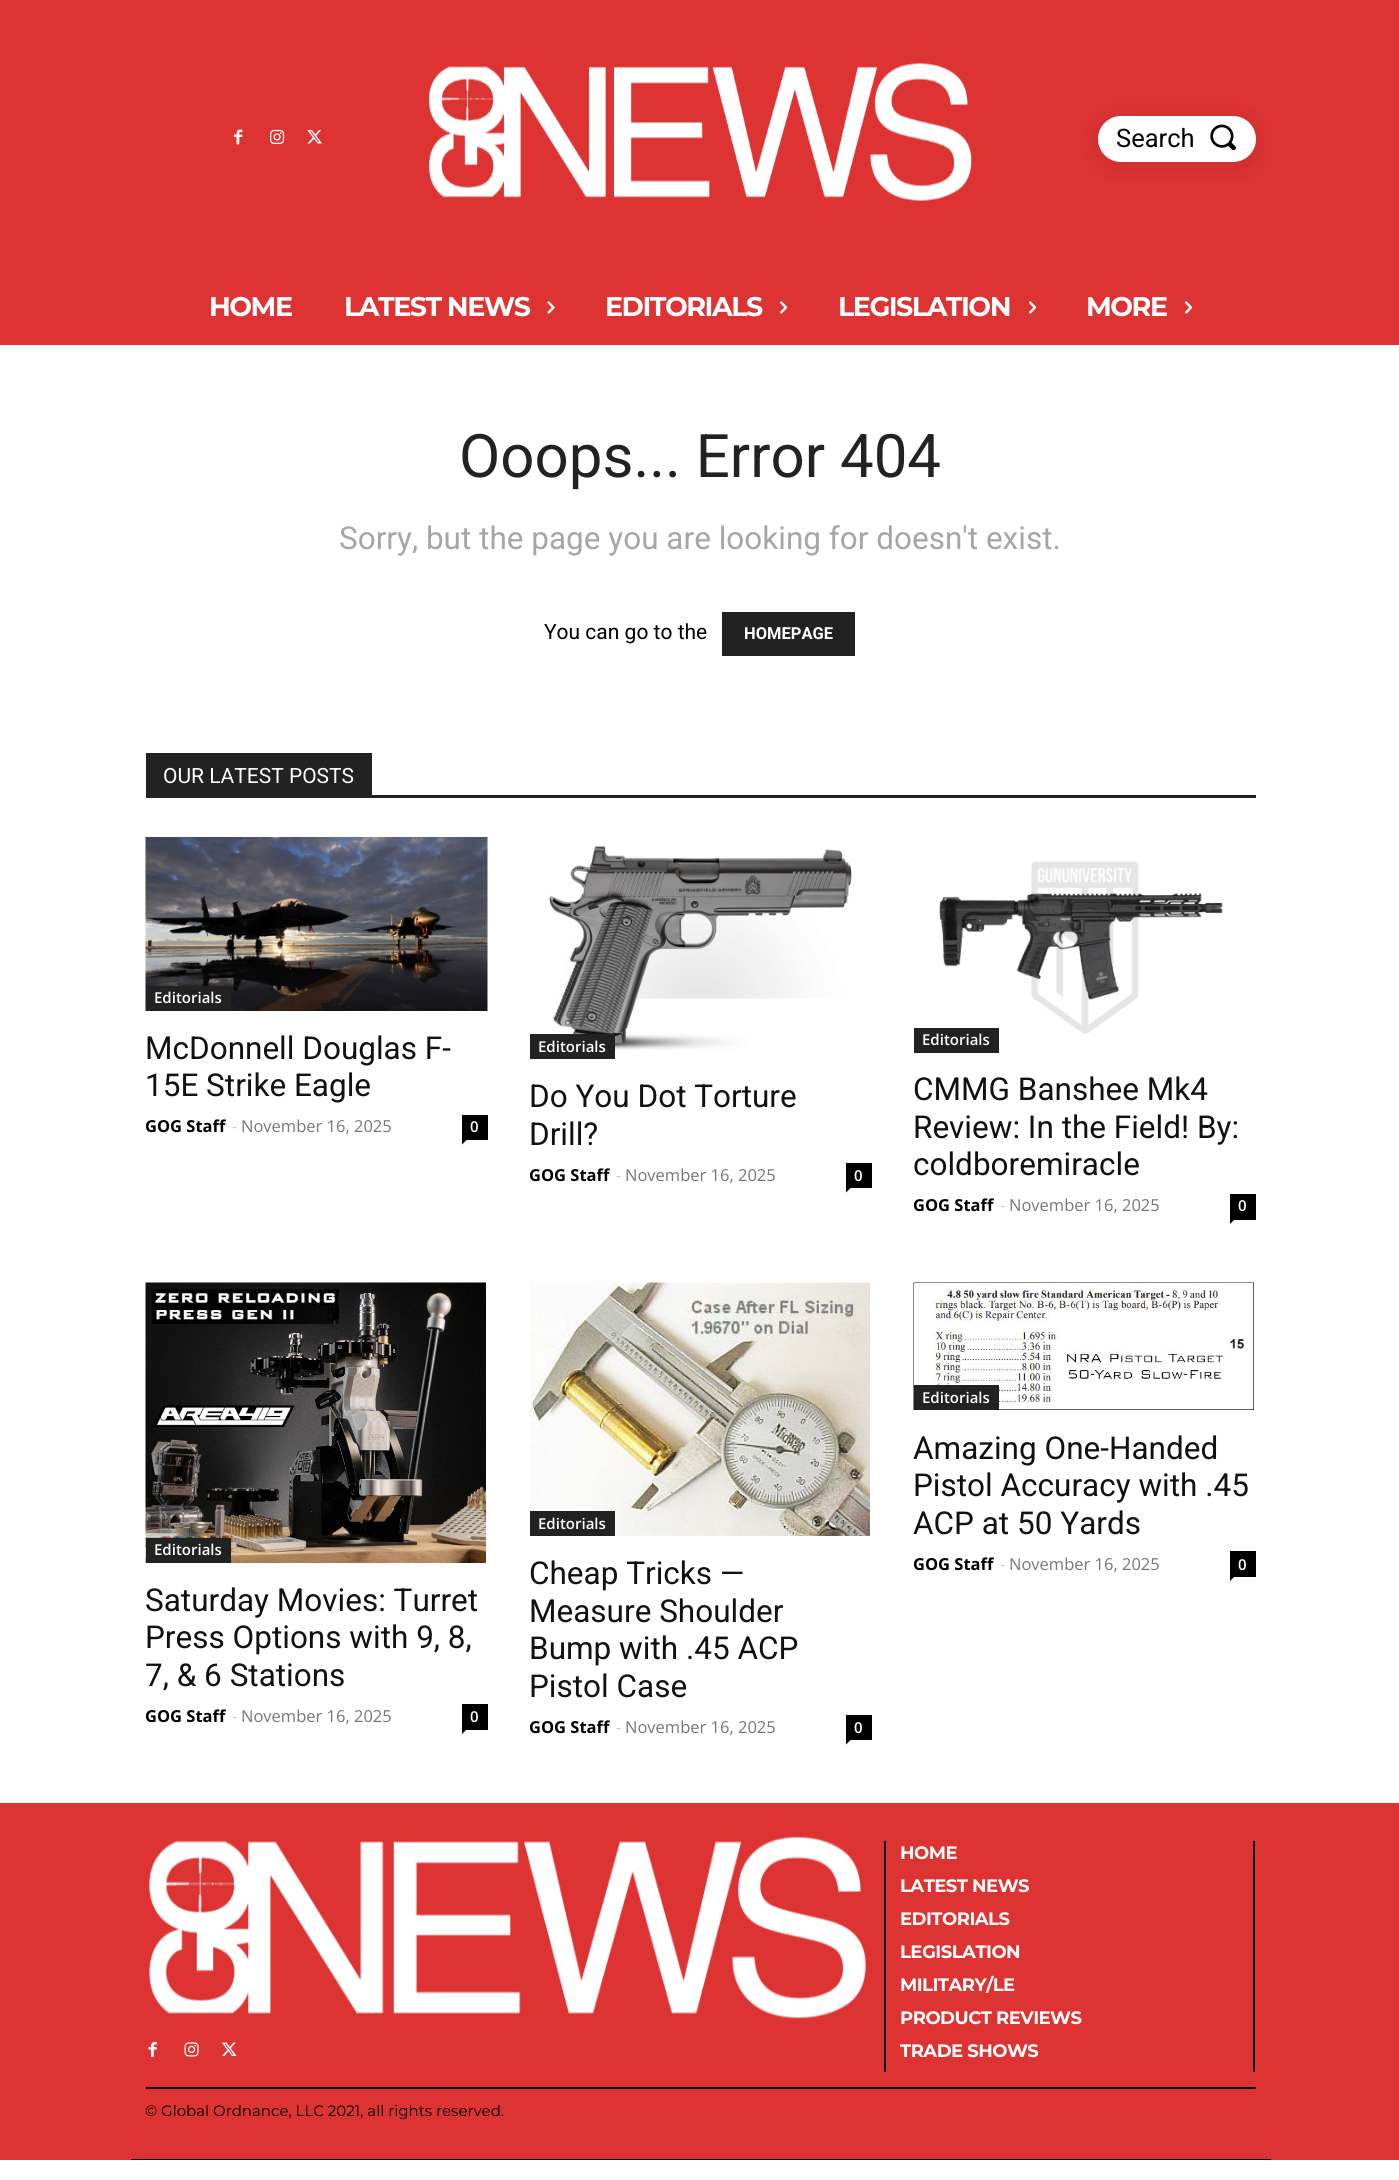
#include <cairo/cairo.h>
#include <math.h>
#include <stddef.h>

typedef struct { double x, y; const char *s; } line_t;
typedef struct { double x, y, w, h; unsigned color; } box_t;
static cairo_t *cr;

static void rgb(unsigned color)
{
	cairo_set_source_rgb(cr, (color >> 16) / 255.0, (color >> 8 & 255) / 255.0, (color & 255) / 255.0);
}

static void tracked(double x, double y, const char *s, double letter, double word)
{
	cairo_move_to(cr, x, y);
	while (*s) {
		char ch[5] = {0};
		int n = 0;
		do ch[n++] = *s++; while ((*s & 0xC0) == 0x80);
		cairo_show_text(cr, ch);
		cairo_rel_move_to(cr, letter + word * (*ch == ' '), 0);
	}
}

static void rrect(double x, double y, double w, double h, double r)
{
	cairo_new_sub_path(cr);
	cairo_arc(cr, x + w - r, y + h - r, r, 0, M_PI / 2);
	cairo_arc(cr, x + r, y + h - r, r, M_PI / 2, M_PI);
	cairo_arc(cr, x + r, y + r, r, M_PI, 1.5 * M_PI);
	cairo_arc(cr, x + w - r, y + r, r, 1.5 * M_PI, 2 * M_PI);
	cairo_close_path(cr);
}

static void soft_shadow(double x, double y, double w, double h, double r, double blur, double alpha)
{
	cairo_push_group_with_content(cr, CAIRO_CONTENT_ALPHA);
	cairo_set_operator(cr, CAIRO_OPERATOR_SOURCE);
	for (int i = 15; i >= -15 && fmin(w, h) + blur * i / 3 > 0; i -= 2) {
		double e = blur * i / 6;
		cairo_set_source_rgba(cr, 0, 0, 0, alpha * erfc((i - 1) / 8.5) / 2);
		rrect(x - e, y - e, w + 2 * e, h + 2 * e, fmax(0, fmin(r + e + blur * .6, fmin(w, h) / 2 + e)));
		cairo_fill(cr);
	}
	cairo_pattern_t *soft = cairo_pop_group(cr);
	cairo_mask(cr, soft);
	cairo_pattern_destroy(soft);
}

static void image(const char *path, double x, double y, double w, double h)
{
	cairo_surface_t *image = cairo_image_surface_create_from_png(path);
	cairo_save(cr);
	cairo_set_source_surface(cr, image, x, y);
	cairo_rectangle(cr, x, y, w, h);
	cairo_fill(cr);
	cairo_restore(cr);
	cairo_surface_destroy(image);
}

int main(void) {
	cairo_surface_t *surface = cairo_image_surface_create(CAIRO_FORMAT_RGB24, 1399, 2180);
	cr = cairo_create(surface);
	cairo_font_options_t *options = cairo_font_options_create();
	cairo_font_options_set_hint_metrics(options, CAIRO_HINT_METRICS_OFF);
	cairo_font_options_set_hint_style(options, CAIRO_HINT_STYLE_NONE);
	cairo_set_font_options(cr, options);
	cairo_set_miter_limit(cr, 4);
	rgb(0xffffff);
	cairo_paint(cr);
	rgb(0xdd3333);
	cairo_rectangle(cr, 0, 0, 1399, 345);
	cairo_fill(cr);
	image("img/1.png", 234, 129, 9, 16);
	image("img/2.png", 270, 129, 15, 15);
	image("img/3.png", 307, 130, 15, 14);
	image("img/4.png", 429, 63, 543, 138);
	rgb(0x000000);
	soft_shadow(1098, 119, 158, 46, 23, 12, 0.1);
	rgb(0xffffff);
	rrect(1098, 116, 158, 46, 23);
	cairo_fill(cr);
	image("img/5.png", 1210, 124, 26, 27);
	image("img/6.png", 547, 301, 8, 13);
	image("img/7.png", 780, 301, 8, 13);
	image("img/7.png", 1029, 301, 8, 13);
	image("img/7.png", 1185, 301, 8, 13);
	{
		static const box_t items[] = {
			{722, 612, 133, 44, 0x222222},
			{146, 795, 1110, 3, 0x222222},
			{146, 753, 226, 42, 0x222222},
		};
		for (size_t i = 0; i < sizeof items / sizeof *items; i++) {
			rgb(items[i].color);
			cairo_rectangle(cr, items[i].x, items[i].y, items[i].w, items[i].h);
			cairo_fill(cr);
		}
	}
	image("img/8.png", 145, 837, 343, 174);
	cairo_rectangle(cr, 146, 986, 85, 25);
	cairo_fill(cr);
	rgb(0x000000);
	cairo_rectangle(cr, 462, 1115, 26, 25);
	cairo_fill(cr);
	cairo_new_path(cr);
	cairo_move_to(cr, 462, 1140);
	cairo_line_to(cr, 466.5, 1140);
	cairo_line_to(cr, 462, 1144.5);
	cairo_close_path(cr);
	cairo_fill(cr);
	image("img/9.png", 549, 846, 303, 204);
	rgb(0x222222);
	cairo_rectangle(cr, 530, 1034, 85, 25);
	cairo_fill(cr);
	rgb(0x000000);
	cairo_rectangle(cr, 846, 1163, 26, 25);
	cairo_fill(cr);
	cairo_new_path(cr);
	cairo_move_to(cr, 846, 1188);
	cairo_line_to(cr, 850.5, 1188);
	cairo_line_to(cr, 846, 1192.5);
	cairo_close_path(cr);
	cairo_fill(cr);
	image("img/10.png", 939, 861, 284, 173);
	rgb(0x222222);
	cairo_rectangle(cr, 914, 1028, 85, 25);
	cairo_fill(cr);
	rgb(0x000000);
	cairo_rectangle(cr, 1230, 1194, 26, 26);
	cairo_fill(cr);
	cairo_new_path(cr);
	cairo_move_to(cr, 1230, 1219.5);
	cairo_line_to(cr, 1234.5, 1219.5);
	cairo_line_to(cr, 1230, 1224);
	cairo_close_path(cr);
	cairo_fill(cr);
	image("img/11.png", 913, 1282, 341, 128);
	rgb(0x222222);
	cairo_rectangle(cr, 914, 1385, 85, 25);
	cairo_fill(cr);
	rgb(0x000000);
	cairo_rectangle(cr, 1230, 1551, 26, 26);
	cairo_fill(cr);
	cairo_new_path(cr);
	cairo_move_to(cr, 1230, 1576.5);
	cairo_line_to(cr, 1234.5, 1576.5);
	cairo_line_to(cr, 1230, 1581);
	cairo_close_path(cr);
	cairo_fill(cr);
	image("img/12.png", 145, 1282, 341, 281);
	rgb(0x222222);
	cairo_rectangle(cr, 146, 1538, 85, 25);
	cairo_fill(cr);
	rgb(0x000000);
	cairo_rectangle(cr, 462, 1704, 26, 26);
	cairo_fill(cr);
	cairo_new_path(cr);
	cairo_move_to(cr, 462, 1729.5);
	cairo_line_to(cr, 466.5, 1729.5);
	cairo_line_to(cr, 462, 1734);
	cairo_close_path(cr);
	cairo_fill(cr);
	image("img/13.png", 529, 1282, 341, 254);
	rgb(0x222222);
	cairo_rectangle(cr, 530, 1511, 85, 25);
	cairo_fill(cr);
	rgb(0x000000);
	cairo_rectangle(cr, 846, 1715, 26, 25);
	cairo_fill(cr);
	cairo_new_path(cr);
	cairo_move_to(cr, 846, 1740);
	cairo_line_to(cr, 850.5, 1740);
	cairo_line_to(cr, 846, 1744.5);
	cairo_close_path(cr);
	cairo_fill(cr);
	{
		static const box_t items[] = {
			{0, 1803, 1399, 357, 0xdd3333},
			{146, 2087, 1110, 2, 0x000000},
			{884, 1841, 2, 231, 0x000000},
		};
		for (size_t i = 0; i < sizeof items / sizeof *items; i++) {
			rgb(items[i].color);
			cairo_rectangle(cr, items[i].x, items[i].y, items[i].w, items[i].h);
			cairo_fill(cr);
		}
	}
	image("img/14.png", 149, 1836, 717, 183);
	image("img/15.png", 148, 2042, 9, 15);
	image("img/16.png", 184, 2042, 15, 15);
	image("img/17.png", 221, 2042, 16, 14);
	cairo_rectangle(cr, 1253, 1841, 2, 231);
	cairo_fill(cr);
	cairo_rectangle(cr, 131, 2159, 1140, 1);
	cairo_fill(cr);
	cairo_select_font_face(cr, "Roboto", CAIRO_FONT_SLANT_NORMAL, CAIRO_FONT_WEIGHT_NORMAL);
	cairo_set_font_size(cr, 25.5);
	cairo_move_to(cr, 1116, 147);
	cairo_show_text(cr, "Search");
	cairo_select_font_face(cr, "Montserrat Thin", CAIRO_FONT_SLANT_NORMAL, CAIRO_FONT_WEIGHT_NORMAL);
	cairo_set_font_size(cr, 27);
	rgb(0xffffff);
	{
		static const line_t items[] = {
			{209, 316, "HOME"},
			{344, 316, "LATEST NEWS"},
			{605, 316, "EDITORIALS"},
			{838, 316, "LEGISLATION"},
			{1086, 316, "MORE"},
		};
		for (size_t i = 0; i < sizeof items / sizeof *items; i++) {
			tracked(items[i].x, items[i].y, items[i].s, -1.5, 0);
		}
	}
	cairo_select_font_face(cr, "Roboto", CAIRO_FONT_SLANT_NORMAL, CAIRO_FONT_WEIGHT_NORMAL);
	cairo_set_font_size(cr, 60);
	rgb(0x222222);
	cairo_move_to(cr, 459, 477);
	cairo_show_text(cr, "Ooops... Error 404");
	cairo_set_font_size(cr, 31.5);
	rgb(0xa6a6a6);
	cairo_move_to(cr, 339, 549);
	cairo_show_text(cr, "Sorry, but the page you are looking for doesn't exist.");
	cairo_set_font_size(cr, 21);
	rgb(0x000000);
	cairo_move_to(cr, 544, 639);
	cairo_show_text(cr, "You can go to the");
	cairo_select_font_face(cr, "Roboto", CAIRO_FONT_SLANT_NORMAL, CAIRO_FONT_WEIGHT_BOLD);
	cairo_set_font_size(cr, 16.5);
	rgb(0xffffff);
	cairo_move_to(cr, 744, 639);
	cairo_show_text(cr, "HOMEPAGE");
	cairo_select_font_face(cr, "Roboto", CAIRO_FONT_SLANT_NORMAL, CAIRO_FONT_WEIGHT_NORMAL);
	cairo_set_font_size(cr, 21);
	cairo_move_to(cr, 163, 783);
	cairo_show_text(cr, "OUR LATEST POSTS");
	cairo_select_font_face(cr, "Open Sans SemiBold", CAIRO_FONT_SLANT_NORMAL, CAIRO_FONT_WEIGHT_NORMAL);
	cairo_set_font_size(cr, 15);
	cairo_move_to(cr, 154, 1003);
	cairo_show_text(cr, "Editorials");
	cairo_select_font_face(cr, "Roboto", CAIRO_FONT_SLANT_NORMAL, CAIRO_FONT_WEIGHT_NORMAL);
	cairo_set_font_size(cr, 31.5);
	rgb(0x111111);
	cairo_move_to(cr, 145, 1059);
	cairo_show_text(cr, "McDonnell Douglas F-");
	cairo_move_to(cr, 145, 1096);
	cairo_show_text(cr, "15E Strike Eagle");
	cairo_select_font_face(cr, "Open Sans", CAIRO_FONT_SLANT_NORMAL, CAIRO_FONT_WEIGHT_BOLD);
	cairo_set_font_size(cr, 16.5);
	rgb(0x000000);
	cairo_move_to(cr, 145, 1132);
	cairo_show_text(cr, "GOG Staff");
	cairo_select_font_face(cr, "Open Sans", CAIRO_FONT_SLANT_NORMAL, CAIRO_FONT_WEIGHT_NORMAL);
	rgb(0xcccccc);
	cairo_move_to(cr, 232, 1132);
	cairo_show_text(cr, "-");
	rgb(0x767676);
	cairo_move_to(cr, 241, 1132);
	cairo_show_text(cr, "November 16, 2025");
	cairo_select_font_face(cr, "Open Sans SemiBold", CAIRO_FONT_SLANT_NORMAL, CAIRO_FONT_WEIGHT_NORMAL);
	cairo_set_font_size(cr, 15);
	rgb(0xffffff);
	cairo_move_to(cr, 470, 1132);
	cairo_show_text(cr, "0");
	cairo_move_to(cr, 538, 1052);
	cairo_show_text(cr, "Editorials");
	cairo_select_font_face(cr, "Roboto", CAIRO_FONT_SLANT_NORMAL, CAIRO_FONT_WEIGHT_NORMAL);
	cairo_set_font_size(cr, 31.5);
	rgb(0x111111);
	cairo_move_to(cr, 529, 1107);
	cairo_show_text(cr, "Do You Dot Torture");
	cairo_move_to(cr, 529, 1145);
	cairo_show_text(cr, "Drill?");
	cairo_select_font_face(cr, "Open Sans", CAIRO_FONT_SLANT_NORMAL, CAIRO_FONT_WEIGHT_BOLD);
	cairo_set_font_size(cr, 16.5);
	rgb(0x000000);
	cairo_move_to(cr, 529, 1181);
	cairo_show_text(cr, "GOG Staff");
	cairo_select_font_face(cr, "Open Sans", CAIRO_FONT_SLANT_NORMAL, CAIRO_FONT_WEIGHT_NORMAL);
	rgb(0xcccccc);
	cairo_move_to(cr, 616, 1181);
	cairo_show_text(cr, "-");
	rgb(0x767676);
	cairo_move_to(cr, 625, 1181);
	cairo_show_text(cr, "November 16, 2025");
	cairo_select_font_face(cr, "Open Sans SemiBold", CAIRO_FONT_SLANT_NORMAL, CAIRO_FONT_WEIGHT_NORMAL);
	cairo_set_font_size(cr, 15);
	rgb(0xffffff);
	cairo_move_to(cr, 854, 1181);
	cairo_show_text(cr, "0");
	cairo_move_to(cr, 922, 1045);
	cairo_show_text(cr, "Editorials");
	cairo_select_font_face(cr, "Roboto", CAIRO_FONT_SLANT_NORMAL, CAIRO_FONT_WEIGHT_NORMAL);
	cairo_set_font_size(cr, 31.5);
	rgb(0x111111);
	{
		static const line_t items[] = {
			{913, 1100, "CMMG Banshee Mk4"},
			{913, 1138, "Review: In the Field! By:"},
			{913, 1175, "coldboremiracle"},
		};
		for (size_t i = 0; i < sizeof items / sizeof *items; i++) {
			cairo_move_to(cr, items[i].x, items[i].y);
			cairo_show_text(cr, items[i].s);
		}
	}
	cairo_select_font_face(cr, "Open Sans", CAIRO_FONT_SLANT_NORMAL, CAIRO_FONT_WEIGHT_BOLD);
	cairo_set_font_size(cr, 16.5);
	rgb(0x000000);
	cairo_move_to(cr, 913, 1211);
	cairo_show_text(cr, "GOG Staff");
	cairo_select_font_face(cr, "Open Sans", CAIRO_FONT_SLANT_NORMAL, CAIRO_FONT_WEIGHT_NORMAL);
	rgb(0xcccccc);
	cairo_move_to(cr, 1000, 1211);
	cairo_show_text(cr, "-");
	rgb(0x767676);
	cairo_move_to(cr, 1009, 1211);
	cairo_show_text(cr, "November 16, 2025");
	cairo_select_font_face(cr, "Open Sans SemiBold", CAIRO_FONT_SLANT_NORMAL, CAIRO_FONT_WEIGHT_NORMAL);
	cairo_set_font_size(cr, 15);
	rgb(0xffffff);
	cairo_move_to(cr, 1238, 1211);
	cairo_show_text(cr, "0");
	cairo_move_to(cr, 922, 1403);
	cairo_show_text(cr, "Editorials");
	cairo_select_font_face(cr, "Roboto", CAIRO_FONT_SLANT_NORMAL, CAIRO_FONT_WEIGHT_NORMAL);
	cairo_set_font_size(cr, 31.5);
	rgb(0x111111);
	{
		static const line_t items[] = {
			{913, 1459, "Amazing One-Handed"},
			{913, 1496, "Pistol Accuracy with .45"},
			{913, 1534, "ACP at 50 Yards"},
		};
		for (size_t i = 0; i < sizeof items / sizeof *items; i++) {
			cairo_move_to(cr, items[i].x, items[i].y);
			cairo_show_text(cr, items[i].s);
		}
	}
	cairo_select_font_face(cr, "Open Sans", CAIRO_FONT_SLANT_NORMAL, CAIRO_FONT_WEIGHT_BOLD);
	cairo_set_font_size(cr, 16.5);
	rgb(0x000000);
	cairo_move_to(cr, 913, 1570);
	cairo_show_text(cr, "GOG Staff");
	cairo_select_font_face(cr, "Open Sans", CAIRO_FONT_SLANT_NORMAL, CAIRO_FONT_WEIGHT_NORMAL);
	rgb(0xcccccc);
	cairo_move_to(cr, 1000, 1570);
	cairo_show_text(cr, "-");
	rgb(0x767676);
	cairo_move_to(cr, 1009, 1570);
	cairo_show_text(cr, "November 16, 2025");
	cairo_select_font_face(cr, "Open Sans SemiBold", CAIRO_FONT_SLANT_NORMAL, CAIRO_FONT_WEIGHT_NORMAL);
	cairo_set_font_size(cr, 15);
	rgb(0xffffff);
	cairo_move_to(cr, 1238, 1570);
	cairo_show_text(cr, "0");
	cairo_move_to(cr, 154, 1555);
	cairo_show_text(cr, "Editorials");
	cairo_select_font_face(cr, "Roboto", CAIRO_FONT_SLANT_NORMAL, CAIRO_FONT_WEIGHT_NORMAL);
	cairo_set_font_size(cr, 31.5);
	rgb(0x111111);
	{
		static const line_t items[] = {
			{145, 1611, "Saturday Movies: Turret"},
			{145, 1648, "Press Options with 9, 8,"},
			{145, 1686, "7, & 6 Stations"},
		};
		for (size_t i = 0; i < sizeof items / sizeof *items; i++) {
			cairo_move_to(cr, items[i].x, items[i].y);
			cairo_show_text(cr, items[i].s);
		}
	}
	cairo_select_font_face(cr, "Open Sans", CAIRO_FONT_SLANT_NORMAL, CAIRO_FONT_WEIGHT_BOLD);
	cairo_set_font_size(cr, 16.5);
	rgb(0x000000);
	cairo_move_to(cr, 145, 1722);
	cairo_show_text(cr, "GOG Staff");
	cairo_select_font_face(cr, "Open Sans", CAIRO_FONT_SLANT_NORMAL, CAIRO_FONT_WEIGHT_NORMAL);
	rgb(0xcccccc);
	cairo_move_to(cr, 232, 1722);
	cairo_show_text(cr, "-");
	rgb(0x767676);
	cairo_move_to(cr, 241, 1722);
	cairo_show_text(cr, "November 16, 2025");
	cairo_select_font_face(cr, "Open Sans SemiBold", CAIRO_FONT_SLANT_NORMAL, CAIRO_FONT_WEIGHT_NORMAL);
	cairo_set_font_size(cr, 15);
	rgb(0xffffff);
	cairo_move_to(cr, 470, 1722);
	cairo_show_text(cr, "0");
	cairo_move_to(cr, 538, 1529);
	cairo_show_text(cr, "Editorials");
	cairo_select_font_face(cr, "Roboto", CAIRO_FONT_SLANT_NORMAL, CAIRO_FONT_WEIGHT_NORMAL);
	cairo_set_font_size(cr, 31.5);
	rgb(0x111111);
	{
		static const line_t items[] = {
			{529, 1584, "Cheap Tricks —"},
			{529, 1622, "Measure Shoulder"},
			{529, 1659, "Bump with .45 ACP"},
			{529, 1697, "Pistol Case"},
		};
		for (size_t i = 0; i < sizeof items / sizeof *items; i++) {
			cairo_move_to(cr, items[i].x, items[i].y);
			cairo_show_text(cr, items[i].s);
		}
	}
	cairo_select_font_face(cr, "Open Sans", CAIRO_FONT_SLANT_NORMAL, CAIRO_FONT_WEIGHT_BOLD);
	cairo_set_font_size(cr, 16.5);
	rgb(0x000000);
	cairo_move_to(cr, 529, 1733);
	cairo_show_text(cr, "GOG Staff");
	cairo_select_font_face(cr, "Open Sans", CAIRO_FONT_SLANT_NORMAL, CAIRO_FONT_WEIGHT_NORMAL);
	rgb(0xcccccc);
	cairo_move_to(cr, 616, 1733);
	cairo_show_text(cr, "-");
	rgb(0x767676);
	cairo_move_to(cr, 625, 1733);
	cairo_show_text(cr, "November 16, 2025");
	cairo_select_font_face(cr, "Open Sans SemiBold", CAIRO_FONT_SLANT_NORMAL, CAIRO_FONT_WEIGHT_NORMAL);
	cairo_set_font_size(cr, 15);
	rgb(0xffffff);
	cairo_move_to(cr, 854, 1733);
	cairo_show_text(cr, "0");
	cairo_select_font_face(cr, "Montserrat Thin", CAIRO_FONT_SLANT_NORMAL, CAIRO_FONT_WEIGHT_NORMAL);
	cairo_set_font_size(cr, 18);
	{
		static const line_t items[] = {
			{900, 1859, "HOME"},
			{900, 1892, "LATEST NEWS"},
			{900, 1925, "EDITORIALS"},
			{900, 1958, "LEGISLATION"},
			{900, 1991, "MILITARY/LE"},
			{900, 2024, "PRODUCT REVIEWS"},
		};
		for (size_t i = 0; i < sizeof items / sizeof *items; i++) {
			tracked(items[i].x, items[i].y, items[i].s, -0.5, 0);
		}
	}
	cairo_save(cr);
	cairo_rectangle(cr, 900, 1841, 338, 220);
	cairo_clip(cr);
	tracked(900, 2057, "TRADE SHOWS", -0.5, 0);
	cairo_restore(cr);
	cairo_select_font_face(cr, "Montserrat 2 Thin", CAIRO_FONT_SLANT_NORMAL, CAIRO_FONT_WEIGHT_NORMAL);
	cairo_set_font_size(cr, 15);
	rgb(0x000000);
	cairo_move_to(cr, 145, 2116);
	cairo_show_text(cr, "© Global Ordnance, LLC 2021, all rights reserved.");
	cairo_surface_write_to_png(surface, "page.png");
	cairo_font_options_destroy(options);
	cairo_destroy(cr);
	cairo_surface_destroy(surface);
	return 0;
}
